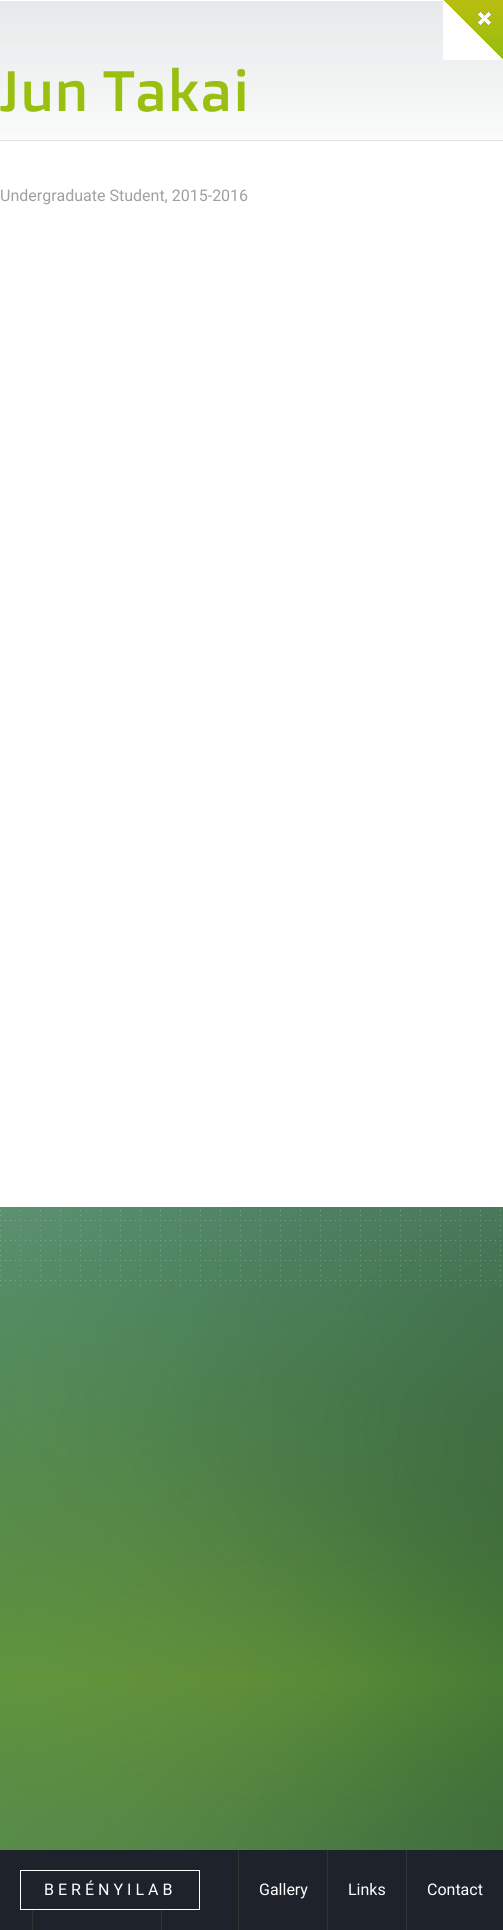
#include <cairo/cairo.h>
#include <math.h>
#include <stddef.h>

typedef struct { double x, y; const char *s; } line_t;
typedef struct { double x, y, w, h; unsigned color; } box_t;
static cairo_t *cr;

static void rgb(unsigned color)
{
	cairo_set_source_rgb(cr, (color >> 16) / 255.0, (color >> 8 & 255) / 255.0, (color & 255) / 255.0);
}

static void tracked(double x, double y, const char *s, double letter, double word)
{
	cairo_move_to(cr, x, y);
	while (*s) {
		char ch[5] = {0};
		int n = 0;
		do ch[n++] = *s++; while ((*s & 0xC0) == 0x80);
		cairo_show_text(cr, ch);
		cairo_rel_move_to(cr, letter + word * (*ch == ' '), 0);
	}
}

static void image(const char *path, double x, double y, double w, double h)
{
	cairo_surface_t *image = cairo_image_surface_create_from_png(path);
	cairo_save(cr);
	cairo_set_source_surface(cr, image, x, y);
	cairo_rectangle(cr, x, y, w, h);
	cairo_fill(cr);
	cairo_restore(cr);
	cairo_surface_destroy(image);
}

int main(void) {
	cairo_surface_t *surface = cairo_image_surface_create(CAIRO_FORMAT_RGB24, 503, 1930);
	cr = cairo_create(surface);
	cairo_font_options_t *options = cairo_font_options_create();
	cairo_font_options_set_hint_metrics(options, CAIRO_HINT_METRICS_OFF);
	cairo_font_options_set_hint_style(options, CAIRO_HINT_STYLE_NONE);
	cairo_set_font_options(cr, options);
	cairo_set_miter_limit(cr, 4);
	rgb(0xffffff);
	cairo_paint(cr);
	image("img/1.png", 0, 1207, 503, 643);
	image("img/2.png", 0, 1, 503, 138);
	image("img/3.png", 443, 0, 60, 60);
	rgb(0xdddddd);
	cairo_rectangle(cr, 0, 140, 503, 1);
	cairo_fill(cr);
	image("img/4.png", 0, 1210, 501, 76);
	rgb(0x1e222b);
	cairo_rectangle(cr, 0, 1850, 503, 80);
	cairo_fill(cr);
	cairo_rectangle(cr, 20.5, 1870.5, 179, 39);
	rgb(0xffffff);
	cairo_set_line_width(cr, 1);
	cairo_stroke(cr);
	{
		static const box_t items[] = {
			{238, 1850, 1, 80, 0x333333},
			{327, 1850, 1, 80, 0x333333},
			{406, 1850, 1, 80, 0x333333},
			{32, 1910, 1, 20, 0x333333},
			{161, 1910, 1, 20, 0x333333},
		};
		for (size_t i = 0; i < sizeof items / sizeof *items; i++) {
			rgb(items[i].color);
			cairo_rectangle(cr, items[i].x, items[i].y, items[i].w, items[i].h);
			cairo_fill(cr);
		}
	}
	cairo_select_font_face(cr, "Doppio One", CAIRO_FONT_SLANT_NORMAL, CAIRO_FONT_WEIGHT_NORMAL);
	cairo_set_font_size(cr, 57);
	rgb(0x99bf10);
	cairo_move_to(cr, 0, 111);
	cairo_show_text(cr, "Jun Takai");
	cairo_select_font_face(cr, "Roboto", CAIRO_FONT_SLANT_NORMAL, CAIRO_FONT_WEIGHT_NORMAL);
	cairo_set_font_size(cr, 16);
	rgb(0xa0a0a0);
	cairo_move_to(cr, 0, 201);
	cairo_show_text(cr, "Undergraduate Student, 2015-2016");
	rgb(0xffffff);
	tracked(44, 1895, "BERÉNYILAB", 4, 0);
	{
		static const line_t items[] = {
			{259, 1895, "Gallery"},
			{348, 1895, "Links"},
			{427, 1895, "Contact"},
		};
		for (size_t i = 0; i < sizeof items / sizeof *items; i++) {
			cairo_move_to(cr, items[i].x, items[i].y);
			cairo_show_text(cr, items[i].s);
		}
	}
	cairo_surface_write_to_png(surface, "page.png");
	cairo_font_options_destroy(options);
	cairo_destroy(cr);
	cairo_surface_destroy(surface);
	return 0;
}
